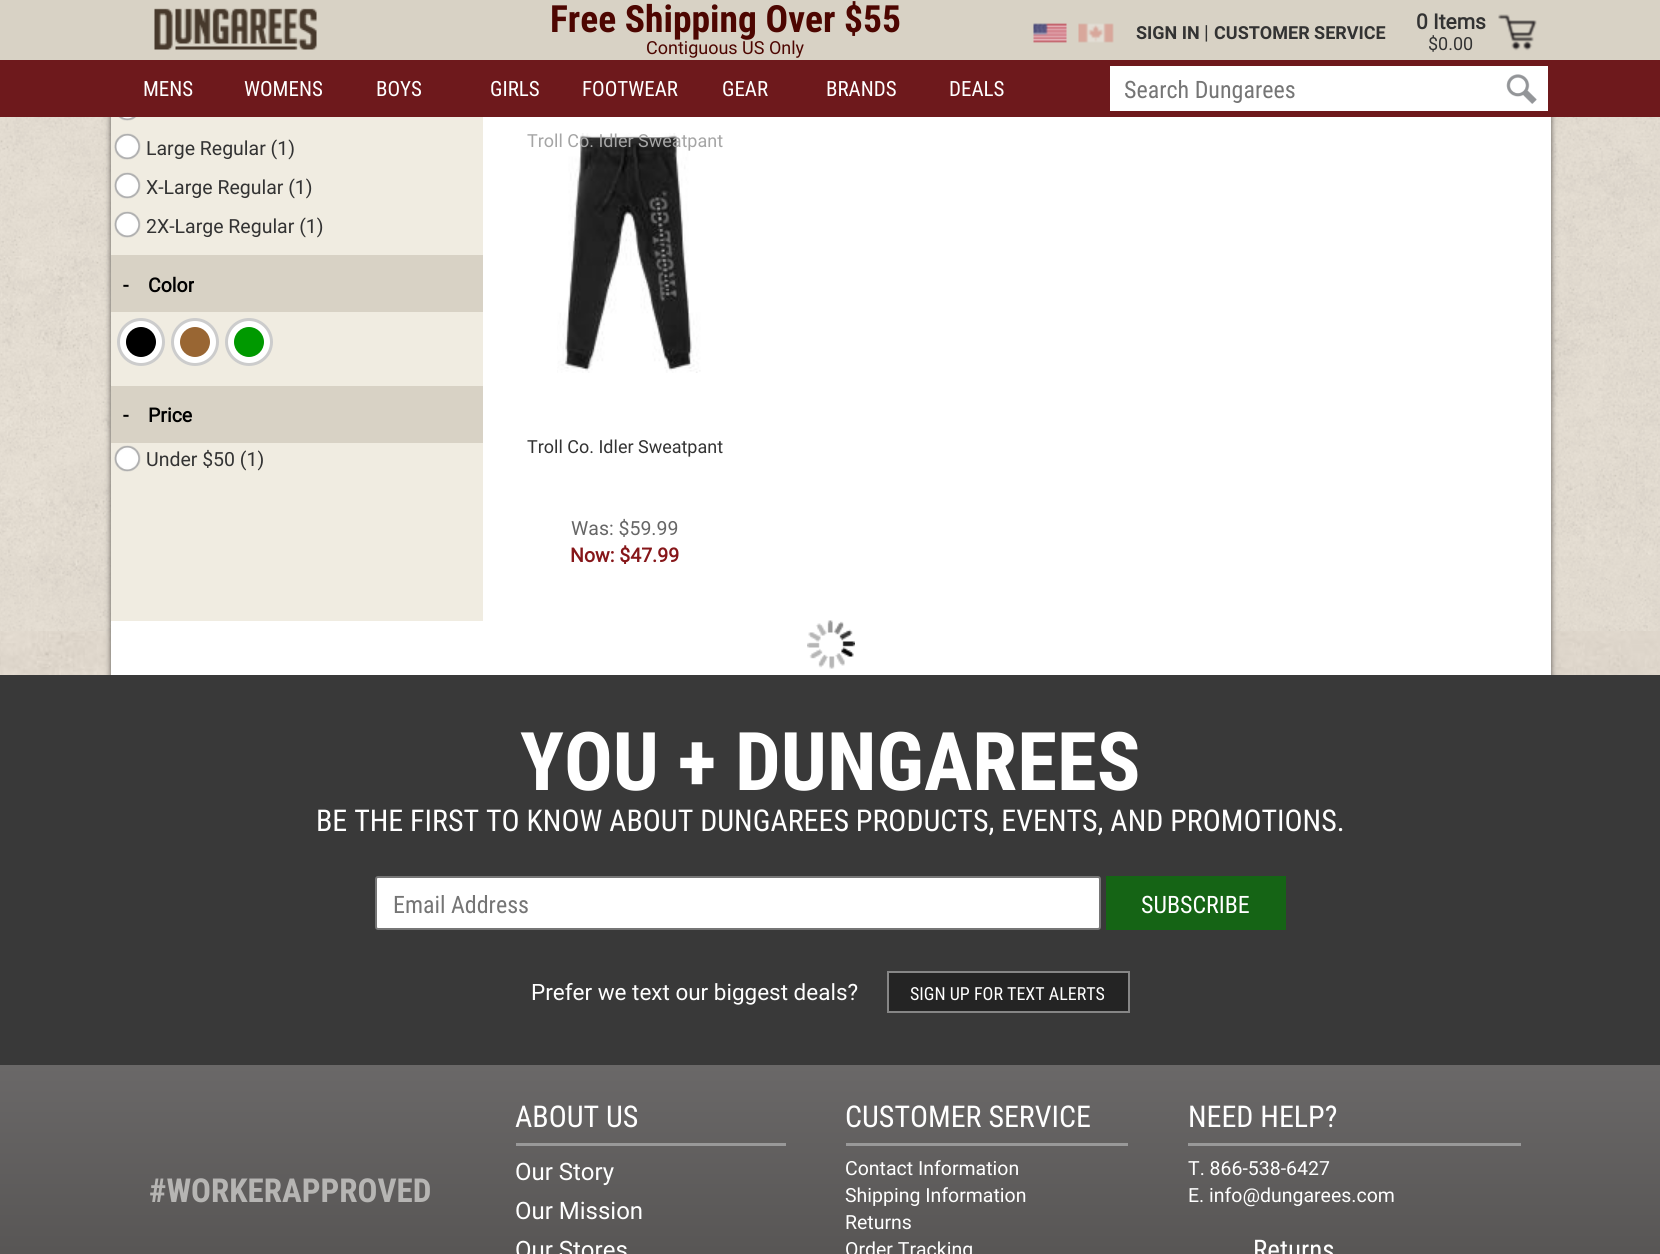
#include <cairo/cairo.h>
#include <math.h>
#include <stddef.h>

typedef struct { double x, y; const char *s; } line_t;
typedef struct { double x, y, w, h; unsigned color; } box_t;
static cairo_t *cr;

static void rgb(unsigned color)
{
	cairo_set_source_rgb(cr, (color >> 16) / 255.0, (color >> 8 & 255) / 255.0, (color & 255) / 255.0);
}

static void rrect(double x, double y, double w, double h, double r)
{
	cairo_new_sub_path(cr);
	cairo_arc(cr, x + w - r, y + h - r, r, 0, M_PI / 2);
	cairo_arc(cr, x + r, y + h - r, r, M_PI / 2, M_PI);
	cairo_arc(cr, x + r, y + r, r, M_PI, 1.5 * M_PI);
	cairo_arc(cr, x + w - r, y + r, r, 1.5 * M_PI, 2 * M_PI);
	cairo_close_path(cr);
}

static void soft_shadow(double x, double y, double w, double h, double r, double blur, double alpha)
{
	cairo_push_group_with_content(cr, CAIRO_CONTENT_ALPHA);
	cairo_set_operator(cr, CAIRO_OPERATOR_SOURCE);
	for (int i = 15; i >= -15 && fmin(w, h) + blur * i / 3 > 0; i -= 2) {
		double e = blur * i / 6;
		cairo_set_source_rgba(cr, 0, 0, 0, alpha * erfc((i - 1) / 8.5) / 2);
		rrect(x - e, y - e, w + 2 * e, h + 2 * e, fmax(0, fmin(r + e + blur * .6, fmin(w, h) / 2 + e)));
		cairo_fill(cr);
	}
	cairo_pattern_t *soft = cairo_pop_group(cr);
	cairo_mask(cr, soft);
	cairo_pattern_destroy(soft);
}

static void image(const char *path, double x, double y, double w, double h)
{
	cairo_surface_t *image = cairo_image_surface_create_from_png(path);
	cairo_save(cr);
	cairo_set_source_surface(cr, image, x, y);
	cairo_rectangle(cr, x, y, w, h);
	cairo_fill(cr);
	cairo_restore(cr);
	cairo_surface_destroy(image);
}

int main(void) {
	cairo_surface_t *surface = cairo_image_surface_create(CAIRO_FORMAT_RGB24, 1660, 1254);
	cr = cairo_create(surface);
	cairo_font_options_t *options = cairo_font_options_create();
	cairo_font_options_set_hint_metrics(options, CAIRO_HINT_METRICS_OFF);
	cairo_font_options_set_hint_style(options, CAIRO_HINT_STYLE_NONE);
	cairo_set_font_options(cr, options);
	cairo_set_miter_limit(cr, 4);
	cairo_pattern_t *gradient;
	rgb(0xffffff);
	cairo_paint(cr);
	image("img/1.png", 0, 117, 1660, 558);
	rgb(0x56524f);
	soft_shadow(111, -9, 1440, 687, 0, 3, 1);
	rgb(0xd8d2c5);
	cairo_rectangle(cr, 0, 0, 1660, 60);
	cairo_fill(cr);
	image("img/2.png", 154, 8, 163, 42);
	image("img/3.png", 1033, 23, 34, 20);
	image("img/4.png", 1078, 23, 36, 20);
	image("img/5.png", 1498, 14, 39, 37);
	rgb(0x6e191c);
	cairo_rectangle(cr, 0, 60, 1660, 57);
	cairo_fill(cr);
	rgb(0xffffff);
	cairo_rectangle(cr, 1110, 66, 438, 45);
	cairo_fill(cr);
	image("img/6.png", 1506, 74, 31, 30);
	cairo_rectangle(cr, 111, 117, 1440, 558);
	cairo_fill(cr);
	rgb(0xf0ece1);
	cairo_rectangle(cr, 111, 117, 372, 504);
	cairo_fill(cr);
	image("img/7.png", 118, 117, 19, 4);
	image("img/8.png", 114, 133, 27, 27);
	image("img/8.png", 114, 172, 27, 27);
	image("img/8.png", 114, 211, 27, 27);
	rgb(0xd8d2c5);
	cairo_rectangle(cr, 111, 255, 372, 57);
	cairo_fill(cr);
	rgb(0xffffff);
	cairo_arc(cr, 141, 342, 22.5, 0, 2 * M_PI);
	cairo_fill_preserve(cr);
	rgb(0xcccccc);
	cairo_set_line_width(cr, 3);
	cairo_stroke(cr);
	rgb(0x000000);
	cairo_arc(cr, 141, 342, 15, 0, 2 * M_PI);
	cairo_fill(cr);
	rgb(0xffffff);
	cairo_arc(cr, 195, 342, 22.5, 0, 2 * M_PI);
	cairo_fill_preserve(cr);
	rgb(0xcccccc);
	cairo_stroke(cr);
	rgb(0x996633);
	cairo_arc(cr, 195, 342, 15, 0, 2 * M_PI);
	cairo_fill(cr);
	rgb(0xffffff);
	cairo_arc(cr, 249, 342, 22.5, 0, 2 * M_PI);
	cairo_fill_preserve(cr);
	rgb(0xcccccc);
	cairo_stroke(cr);
	rgb(0x009900);
	cairo_arc(cr, 249, 342, 15, 0, 2 * M_PI);
	cairo_fill(cr);
	rgb(0xd8d2c5);
	cairo_rectangle(cr, 111, 386, 372, 57);
	cairo_fill(cr);
	image("img/9.png", 114, 445, 27, 27);
	image("img/10.png", 557, 133, 144, 240);
	image("img/11.png", 807, 620, 48, 49);
	rgb(0x393939);
	cairo_rectangle(cr, 0, 675, 1660, 390);
	cairo_fill(cr);
	rgb(0xffffff);
	rrect(376, 877, 724, 52, 2);
	cairo_fill_preserve(cr);
	rgb(0x767676);
	cairo_set_line_width(cr, 2);
	cairo_stroke(cr);
	rgb(0x156415);
	cairo_rectangle(cr, 1106, 876, 180, 54);
	cairo_fill(cr);
	rgb(0x242424);
	cairo_rectangle(cr, 888, 972, 241, 40);
	cairo_fill_preserve(cr);
	rgb(0x868686);
	cairo_stroke(cr);
	gradient = cairo_pattern_create_linear(830, 1065, 830, 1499);
	cairo_pattern_add_color_stop_rgba(gradient, 0, 0.416, 0.408, 0.408, 1);
	cairo_pattern_add_color_stop_rgba(gradient, 1, 0.251, 0.243, 0.235, 1);
	cairo_set_source(cr, gradient);
	cairo_pattern_destroy(gradient);
	cairo_rectangle(cr, 0, 1065, 1660, 189);
	cairo_fill(cr);
	{
		static const box_t items[] = {
			{516, 1143, 270, 3, 0x999999},
			{846, 1143, 282, 3, 0x999999},
			{1188, 1143, 333, 3, 0x999999},
		};
		for (size_t i = 0; i < sizeof items / sizeof *items; i++) {
			rgb(items[i].color);
			cairo_rectangle(cr, items[i].x, items[i].y, items[i].w, items[i].h);
			cairo_fill(cr);
		}
	}
	cairo_select_font_face(cr, "Roboto Condensed", CAIRO_FONT_SLANT_NORMAL, CAIRO_FONT_WEIGHT_BOLD);
	cairo_set_font_size(cr, 37.5);
	rgb(0x4d0601);
	cairo_move_to(cr, 550, 32);
	cairo_show_text(cr, "Free Shipping Over $55");
	cairo_select_font_face(cr, "Roboto", CAIRO_FONT_SLANT_NORMAL, CAIRO_FONT_WEIGHT_NORMAL);
	cairo_set_font_size(cr, 18);
	cairo_move_to(cr, 646, 54);
	cairo_show_text(cr, "Contiguous US Only");
	cairo_select_font_face(cr, "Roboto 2", CAIRO_FONT_SLANT_NORMAL, CAIRO_FONT_WEIGHT_BOLD);
	rgb(0x333333);
	cairo_move_to(cr, 1136, 39);
	cairo_show_text(cr, "SIGN IN");
	cairo_select_font_face(cr, "Roboto", CAIRO_FONT_SLANT_NORMAL, CAIRO_FONT_WEIGHT_NORMAL);
	cairo_set_font_size(cr, 19.5);
	cairo_move_to(cr, 1204, 39);
	cairo_show_text(cr, "|");
	cairo_select_font_face(cr, "Roboto 2", CAIRO_FONT_SLANT_NORMAL, CAIRO_FONT_WEIGHT_BOLD);
	cairo_set_font_size(cr, 18);
	cairo_move_to(cr, 1214, 39);
	cairo_show_text(cr, "CUSTOMER SERVICE");
	cairo_select_font_face(cr, "Roboto", CAIRO_FONT_SLANT_NORMAL, CAIRO_FONT_WEIGHT_BOLD);
	cairo_set_font_size(cr, 21);
	cairo_move_to(cr, 1416, 29);
	cairo_show_text(cr, "0 Items");
	cairo_select_font_face(cr, "Roboto", CAIRO_FONT_SLANT_NORMAL, CAIRO_FONT_WEIGHT_NORMAL);
	cairo_set_font_size(cr, 18);
	cairo_move_to(cr, 1428, 50);
	cairo_show_text(cr, "$0.00");
	cairo_select_font_face(cr, "Roboto Condensed", CAIRO_FONT_SLANT_NORMAL, CAIRO_FONT_WEIGHT_NORMAL);
	cairo_set_font_size(cr, 21);
	rgb(0xffffff);
	{
		static const line_t items[] = {
			{143, 96, "MENS"},
			{244, 96, "WOMENS"},
			{376, 96, "BOYS"},
			{490, 96, "GIRLS"},
			{582, 96, "FOOTWEAR"},
			{722, 96, "GEAR"},
			{826, 96, "BRANDS"},
			{949, 96, "DEALS"},
		};
		for (size_t i = 0; i < sizeof items / sizeof *items; i++) {
			cairo_move_to(cr, items[i].x, items[i].y);
			cairo_show_text(cr, items[i].s);
		}
	}
	cairo_set_font_size(cr, 24);
	rgb(0x757575);
	cairo_move_to(cr, 1124, 98);
	cairo_show_text(cr, "Search Dungarees");
	cairo_select_font_face(cr, "Roboto", CAIRO_FONT_SLANT_NORMAL, CAIRO_FONT_WEIGHT_NORMAL);
	cairo_set_font_size(cr, 19.5);
	rgb(0x333333);
	{
		static const line_t items[] = {
			{146, 155, "Large Regular (1)"},
			{146, 194, "X-Large Regular (1)"},
			{146, 233, "2X-Large Regular (1)"},
		};
		for (size_t i = 0; i < sizeof items / sizeof *items; i++) {
			cairo_move_to(cr, items[i].x, items[i].y);
			cairo_show_text(cr, items[i].s);
		}
	}
	cairo_select_font_face(cr, "Roboto", CAIRO_FONT_SLANT_NORMAL, CAIRO_FONT_WEIGHT_BOLD);
	rgb(0x000000);
	cairo_move_to(cr, 123, 292);
	cairo_show_text(cr, "-");
	cairo_save(cr);
	cairo_rectangle(cr, 149, 266, 45, 39);
	cairo_clip(cr);
	cairo_move_to(cr, 148, 292);
	cairo_show_text(cr, "Color");
	cairo_restore(cr);
	cairo_move_to(cr, 123, 422);
	cairo_show_text(cr, "-");
	cairo_move_to(cr, 148, 422);
	cairo_show_text(cr, "Price");
	cairo_select_font_face(cr, "Roboto", CAIRO_FONT_SLANT_NORMAL, CAIRO_FONT_WEIGHT_NORMAL);
	rgb(0x333333);
	cairo_move_to(cr, 146, 466);
	cairo_show_text(cr, "Under $50 (1)");
	cairo_set_font_size(cr, 18);
	rgb(0xa5a5a5);
	cairo_move_to(cr, 527, 147);
	cairo_show_text(cr, "Troll Co. Idler Sweatpant");
	rgb(0x333333);
	cairo_move_to(cr, 527, 453);
	cairo_show_text(cr, "Troll Co. Idler Sweatpant");
	cairo_set_font_size(cr, 19.5);
	rgb(0x666666);
	cairo_move_to(cr, 571, 535);
	cairo_show_text(cr, "Was: $59.99");
	cairo_select_font_face(cr, "Roboto", CAIRO_FONT_SLANT_NORMAL, CAIRO_FONT_WEIGHT_BOLD);
	rgb(0x861619);
	cairo_move_to(cr, 570, 562);
	cairo_show_text(cr, "Now: $47.99");
	cairo_select_font_face(cr, "Roboto Condensed", CAIRO_FONT_SLANT_NORMAL, CAIRO_FONT_WEIGHT_BOLD);
	cairo_set_font_size(cr, 81);
	rgb(0xffffff);
	cairo_move_to(cr, 520, 790);
	cairo_show_text(cr, "YOU + DUNGAREES");
	cairo_select_font_face(cr, "Roboto Condensed", CAIRO_FONT_SLANT_NORMAL, CAIRO_FONT_WEIGHT_NORMAL);
	cairo_set_font_size(cr, 30);
	cairo_move_to(cr, 316, 831);
	cairo_show_text(cr, "BE THE FIRST TO KNOW ABOUT DUNGAREES PRODUCTS, EVENTS, AND PROMOTIONS.");
	cairo_set_font_size(cr, 24);
	rgb(0x757575);
	cairo_move_to(cr, 393, 913);
	cairo_show_text(cr, "Email Address");
	rgb(0xffffff);
	cairo_move_to(cr, 1141, 913);
	cairo_show_text(cr, "SUBSCRIBE");
	cairo_select_font_face(cr, "Roboto", CAIRO_FONT_SLANT_NORMAL, CAIRO_FONT_WEIGHT_NORMAL);
	cairo_set_font_size(cr, 22.5);
	cairo_move_to(cr, 531, 1000);
	cairo_show_text(cr, "Prefer we text our biggest deals?");
	cairo_select_font_face(cr, "Roboto Condensed", CAIRO_FONT_SLANT_NORMAL, CAIRO_FONT_WEIGHT_NORMAL);
	cairo_set_font_size(cr, 18);
	cairo_move_to(cr, 910, 1000);
	cairo_show_text(cr, "SIGN UP FOR TEXT ALERTS");
	cairo_select_font_face(cr, "Roboto Condensed", CAIRO_FONT_SLANT_NORMAL, CAIRO_FONT_WEIGHT_BOLD);
	cairo_set_font_size(cr, 33);
	rgb(0xb6b5b3);
	cairo_move_to(cr, 149, 1202);
	cairo_show_text(cr, "#WORKERAPPROVED");
	cairo_select_font_face(cr, "Roboto Condensed", CAIRO_FONT_SLANT_NORMAL, CAIRO_FONT_WEIGHT_NORMAL);
	cairo_set_font_size(cr, 30);
	rgb(0xffffff);
	cairo_move_to(cr, 515, 1127);
	cairo_show_text(cr, "ABOUT US");
	cairo_select_font_face(cr, "Roboto", CAIRO_FONT_SLANT_NORMAL, CAIRO_FONT_WEIGHT_NORMAL);
	cairo_set_font_size(cr, 24);
	{
		static const line_t items[] = {
			{515, 1180, "Our Story"},
			{515, 1219, "Our Mission"},
			{515, 1258, "Our Stores"},
		};
		for (size_t i = 0; i < sizeof items / sizeof *items; i++) {
			cairo_move_to(cr, items[i].x, items[i].y);
			cairo_show_text(cr, items[i].s);
		}
	}
	cairo_select_font_face(cr, "Roboto Condensed", CAIRO_FONT_SLANT_NORMAL, CAIRO_FONT_WEIGHT_NORMAL);
	cairo_set_font_size(cr, 30);
	cairo_move_to(cr, 845, 1127);
	cairo_show_text(cr, "CUSTOMER SERVICE");
	cairo_select_font_face(cr, "Roboto", CAIRO_FONT_SLANT_NORMAL, CAIRO_FONT_WEIGHT_NORMAL);
	cairo_set_font_size(cr, 19.5);
	{
		static const line_t items[] = {
			{845, 1175, "Contact Information"},
			{845, 1202, "Shipping Information"},
			{845, 1229, "Returns"},
			{845, 1256, "Order Tracking"},
		};
		for (size_t i = 0; i < sizeof items / sizeof *items; i++) {
			cairo_move_to(cr, items[i].x, items[i].y);
			cairo_show_text(cr, items[i].s);
		}
	}
	cairo_select_font_face(cr, "Roboto Condensed", CAIRO_FONT_SLANT_NORMAL, CAIRO_FONT_WEIGHT_NORMAL);
	cairo_set_font_size(cr, 30);
	cairo_move_to(cr, 1188, 1127);
	cairo_show_text(cr, "NEED HELP?");
	cairo_select_font_face(cr, "Roboto", CAIRO_FONT_SLANT_NORMAL, CAIRO_FONT_WEIGHT_NORMAL);
	cairo_set_font_size(cr, 19.5);
	cairo_move_to(cr, 1188, 1175);
	cairo_show_text(cr, "T. 866-538-6427");
	cairo_move_to(cr, 1188, 1202);
	cairo_show_text(cr, "E. info@dungarees.com");
	cairo_select_font_face(cr, "Roboto Condensed", CAIRO_FONT_SLANT_NORMAL, CAIRO_FONT_WEIGHT_NORMAL);
	cairo_set_font_size(cr, 27);
	cairo_move_to(cr, 1253, 1259);
	cairo_show_text(cr, "Returns");
	cairo_surface_write_to_png(surface, "page.png");
	cairo_font_options_destroy(options);
	cairo_destroy(cr);
	cairo_surface_destroy(surface);
	return 0;
}
